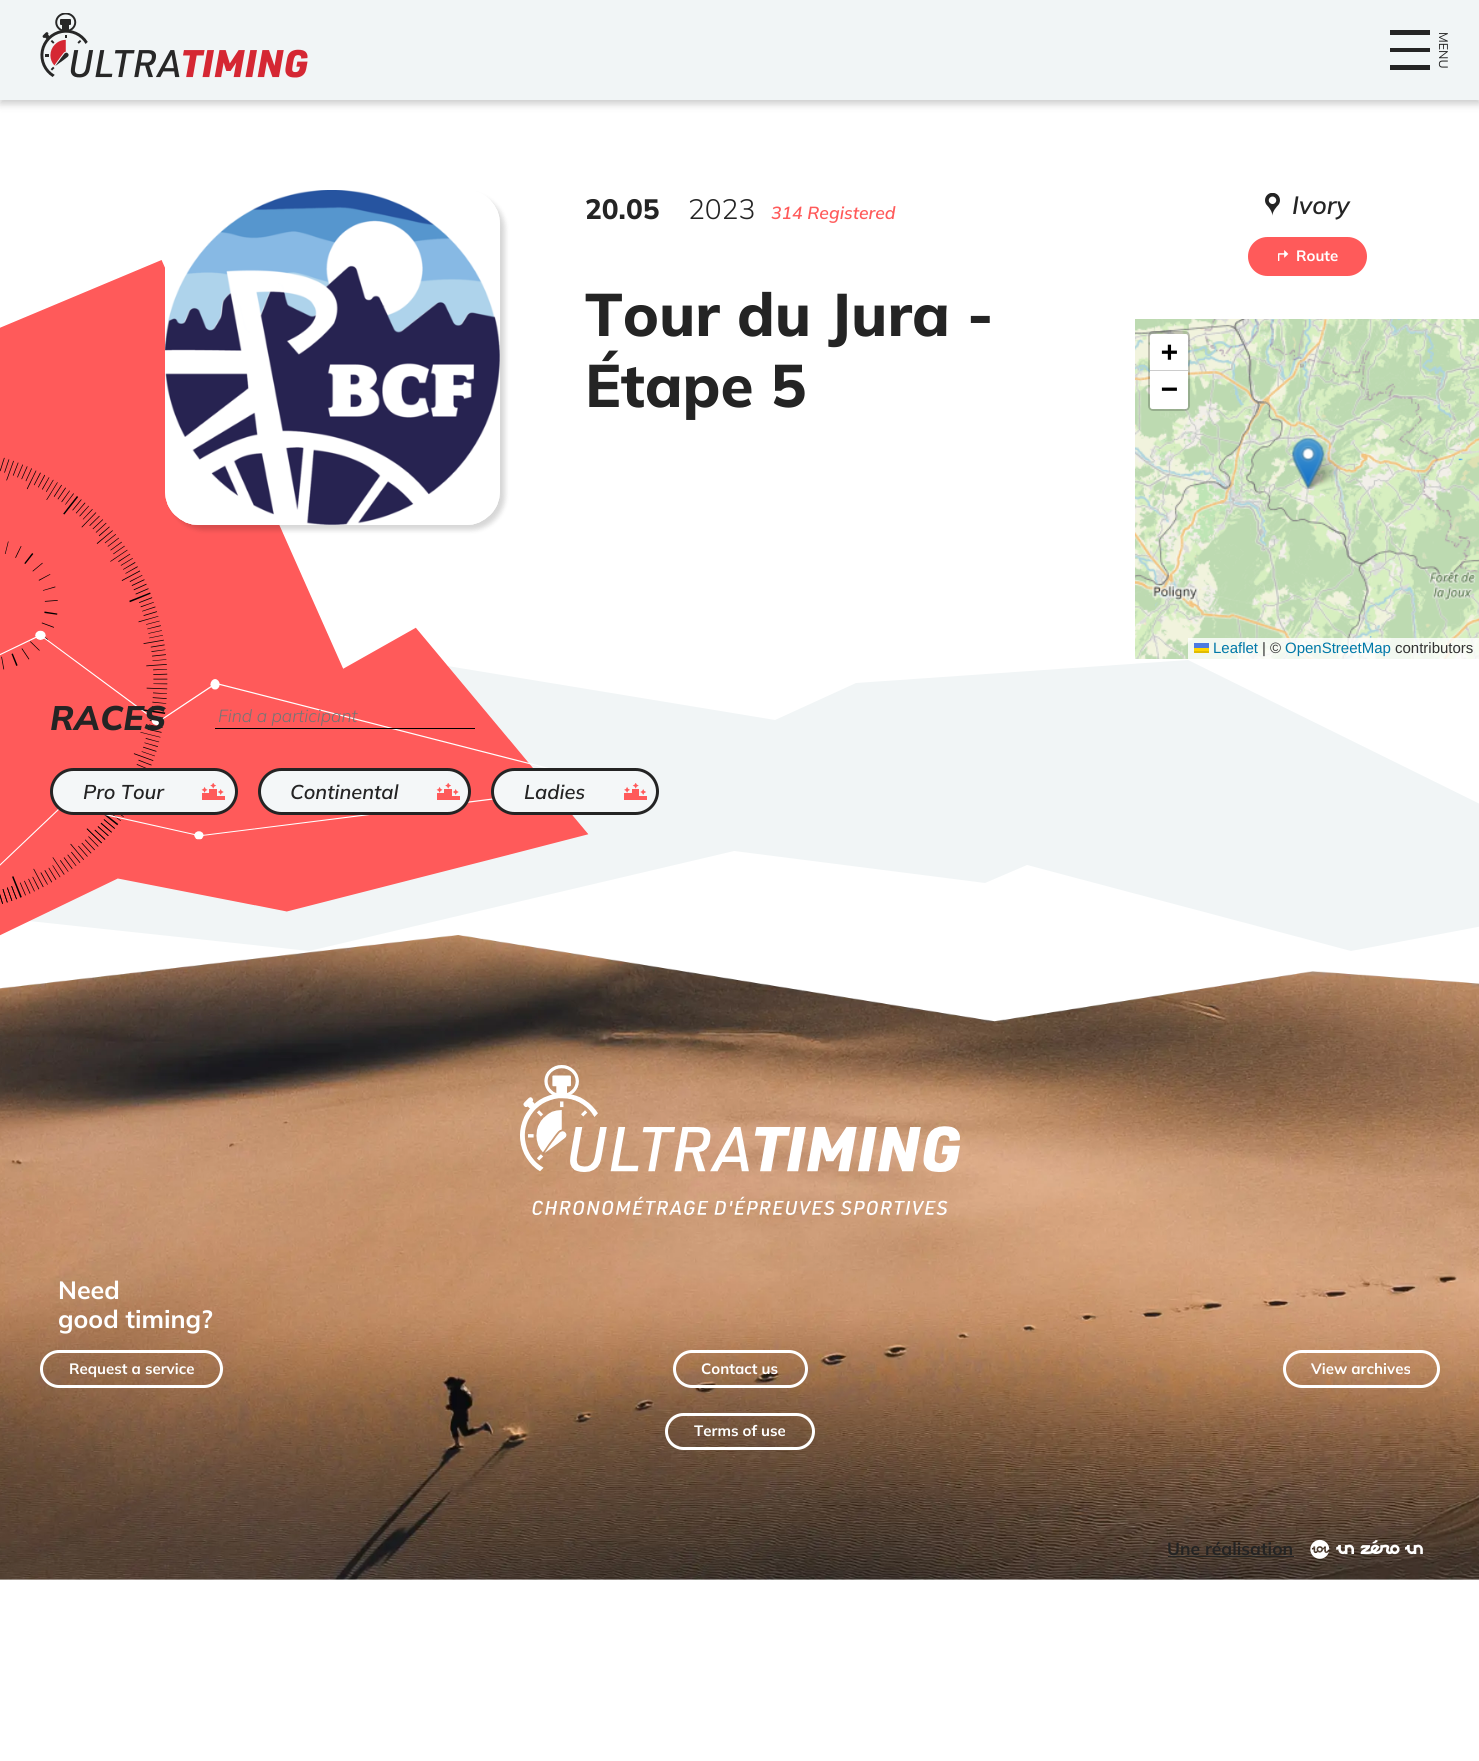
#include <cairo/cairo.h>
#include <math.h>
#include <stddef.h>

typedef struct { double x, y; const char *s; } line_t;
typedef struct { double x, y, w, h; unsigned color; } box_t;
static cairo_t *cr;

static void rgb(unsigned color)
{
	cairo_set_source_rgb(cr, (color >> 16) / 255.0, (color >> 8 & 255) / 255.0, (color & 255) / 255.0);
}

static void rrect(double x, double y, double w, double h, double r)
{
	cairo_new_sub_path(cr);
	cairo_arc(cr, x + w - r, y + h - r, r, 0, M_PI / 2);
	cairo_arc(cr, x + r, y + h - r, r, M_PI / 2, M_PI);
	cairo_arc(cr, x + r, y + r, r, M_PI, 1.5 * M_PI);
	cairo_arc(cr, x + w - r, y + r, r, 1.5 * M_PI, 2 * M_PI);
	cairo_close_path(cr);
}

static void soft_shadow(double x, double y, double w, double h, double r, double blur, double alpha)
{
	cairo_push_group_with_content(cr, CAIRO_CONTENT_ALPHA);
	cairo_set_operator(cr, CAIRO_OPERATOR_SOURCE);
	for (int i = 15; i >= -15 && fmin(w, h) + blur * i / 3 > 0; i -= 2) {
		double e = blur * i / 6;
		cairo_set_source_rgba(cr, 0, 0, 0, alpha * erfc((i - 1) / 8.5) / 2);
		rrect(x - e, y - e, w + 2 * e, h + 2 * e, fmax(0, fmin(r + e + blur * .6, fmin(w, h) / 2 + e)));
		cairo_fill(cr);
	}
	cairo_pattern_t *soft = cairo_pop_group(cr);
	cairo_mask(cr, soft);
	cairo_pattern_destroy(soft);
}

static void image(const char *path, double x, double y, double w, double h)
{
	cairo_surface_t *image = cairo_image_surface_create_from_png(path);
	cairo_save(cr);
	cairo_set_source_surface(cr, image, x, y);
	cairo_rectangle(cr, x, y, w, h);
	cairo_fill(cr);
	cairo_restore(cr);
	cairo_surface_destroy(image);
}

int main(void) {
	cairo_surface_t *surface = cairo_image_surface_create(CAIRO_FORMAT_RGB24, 1479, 1761);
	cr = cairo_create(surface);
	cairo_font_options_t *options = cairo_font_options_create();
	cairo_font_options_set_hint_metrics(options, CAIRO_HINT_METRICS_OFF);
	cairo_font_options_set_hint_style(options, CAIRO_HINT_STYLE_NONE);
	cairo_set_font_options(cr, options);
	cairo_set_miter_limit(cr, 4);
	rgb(0xffffff);
	cairo_paint(cr);
	rgb(0x000000);
	soft_shadow(0, 4, 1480, 100, 0, 4, 0.2);
	rgb(0xf1f5f6);
	cairo_rectangle(cr, 0, 0, 1479, 100);
	cairo_fill(cr);
	image("img/1.png", 40, 13, 268, 65);
	{
		static const box_t items[] = {
			{1390, 30, 40, 5, 0x242424},
			{1390, 48, 40, 4, 0x242424},
			{1390, 65, 40, 5, 0x242424},
		};
		for (size_t i = 0; i < sizeof items / sizeof *items; i++) {
			rgb(items[i].color);
			cairo_rectangle(cr, items[i].x, items[i].y, items[i].w, items[i].h);
			cairo_fill(cr);
		}
	}
	rgb(0xf1f5f6);
	cairo_new_path(cr);
	cairo_move_to(cr, -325, 683);
	cairo_curve_to(cr, -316, 683, 30, 588, 30, 588);
	cairo_line_to(cr, 379, 683);
	cairo_line_to(cr, 411, 660);
	cairo_line_to(cr, 775, 720);
	cairo_line_to(cr, 856, 683);
	cairo_line_to(cr, 1188, 660);
	cairo_line_to(cr, 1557, 842);
	cairo_line_to(cr, 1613, 816);
	cairo_line_to(cr, 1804, 865);
	cairo_line_to(cr, 1351, 951);
	cairo_line_to(cr, 1027, 865);
	cairo_line_to(cr, 985, 883);
	cairo_line_to(cr, 734, 851);
	cairo_line_to(cr, 309, 951);
	cairo_line_to(cr, -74, 910);
	cairo_line_to(cr, -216, 842);
	cairo_line_to(cr, -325, 988);
	cairo_close_path(cr);
	cairo_fill(cr);
	image("img/2.png", 0, 260, 589, 676);
	rgb(0x000000);
	soft_shadow(170, 195, 335, 335, 34, 2.5, 0.16);
	image("img/3.png", 165, 190, 335, 335);
	image("img/4.png", 165, 190, 335, 335);
	image("img/5.png", 1265, 193, 15, 23);
	rgb(0xff5a5a);
	rrect(1246.5, 235.5, 122, 42, 21);
	cairo_fill_preserve(cr);
	rgb(0xffffff);
	cairo_set_line_width(cr, 3);
	cairo_stroke(cr);
	image("img/6.png", 1278, 250, 11, 11);
	image("img/7.png", 1135, 319, 284, 319);
	image("img/8.png", 1419, 319, 60, 319);
	image("img/9.png", 1135, 637, 284, 22);
	image("img/10.png", 1419, 637, 60, 22);
	image("img/12.png", 1304, 453, 37, 36);
	image("img/11.png", 1292, 437, 33, 53);
	rrect(1149.5, 332.5, 39, 77, 3.5);
	cairo_set_source_rgba(cr, 0, 0, 0, 0.2);
	cairo_stroke(cr);
	rgb(0xffffff);
	cairo_new_path(cr);
	cairo_move_to(cr, 1152.5, 334);
	cairo_line_to(cr, 1185.5, 334);
	cairo_curve_to(cr, 1187, 334, 1188, 335, 1188, 336.5);
	cairo_line_to(cr, 1188, 371);
	cairo_line_to(cr, 1150, 371);
	cairo_line_to(cr, 1150, 336.5);
	cairo_curve_to(cr, 1150, 335, 1151, 334, 1152.5, 334);
	cairo_close_path(cr);
	cairo_fill(cr);
	rgb(0xcccccc);
	cairo_rectangle(cr, 1150, 370, 38, 1);
	cairo_fill(cr);
	rgb(0xffffff);
	cairo_new_path(cr);
	cairo_move_to(cr, 1150, 371);
	cairo_line_to(cr, 1188, 371);
	cairo_line_to(cr, 1188, 406.5);
	cairo_curve_to(cr, 1188, 408, 1187, 409, 1185.5, 409);
	cairo_line_to(cr, 1152.5, 409);
	cairo_curve_to(cr, 1151, 409, 1150, 408, 1150, 406.5);
	cairo_close_path(cr);
	cairo_fill(cr);
	cairo_set_source_rgba(cr, 1, 1, 1, 0.8);
	cairo_rectangle(cr, 1188, 638, 291, 21);
	cairo_fill(cr);
	rgb(0x4c7be1);
	cairo_rectangle(cr, 1194, 643, 15, 5);
	cairo_fill(cr);
	rgb(0xffd500);
	cairo_rectangle(cr, 1194, 648, 15, 3);
	cairo_fill(cr);
	rgb(0xe0bc00);
	cairo_rectangle(cr, 1194, 651, 15, 2);
	cairo_fill(cr);
	rgb(0x000000);
	cairo_rectangle(cr, 215, 728, 260, 1);
	cairo_fill(cr);
	rgb(0xf4f7f8);
	rrect(51.5, 769.5, 185, 44, 22);
	cairo_fill_preserve(cr);
	rgb(0x242424);
	cairo_stroke(cr);
	image("img/13.png", 201, 783, 24, 17);
	rgb(0xf4f7f8);
	rrect(259.5, 769.5, 210, 44, 22);
	cairo_fill_preserve(cr);
	rgb(0x242424);
	cairo_stroke(cr);
	image("img/13.png", 436, 783, 24, 17);
	rgb(0xf4f7f8);
	rrect(492.5, 769.5, 165, 44, 22);
	cairo_fill_preserve(cr);
	rgb(0x242424);
	cairo_stroke(cr);
	image("img/14.png", 624, 783, 23, 17);
	image("img/15.png", 0, 935, 1479, 645);
	image("img/16.png", 520, 1065, 440, 150);
	rrect(41.5, 1351.5, 180, 35, 17.5);
	rgb(0xffffff);
	cairo_stroke(cr);
	rrect(674.5, 1351.5, 132, 35, 17.5);
	cairo_stroke(cr);
	rrect(1284.5, 1351.5, 154, 35, 17.5);
	cairo_stroke(cr);
	rrect(666.5, 1414.5, 147, 34, 17);
	cairo_stroke(cr);
	rgb(0x242424);
	cairo_rectangle(cr, 1168, 1556, 126, 1);
	cairo_fill(cr);
	image("img/17.png", 1310, 1539, 113, 20);
	cairo_select_font_face(cr, "Mulish", CAIRO_FONT_SLANT_NORMAL, CAIRO_FONT_WEIGHT_NORMAL);
	cairo_set_font_size(cr, 12.5);
	cairo_save(cr);
	cairo_translate(cr, 1439, 32);
	cairo_rotate(cr, 90 * M_PI / 180);
	cairo_move_to(cr, 0, 0);
	cairo_show_text(cr, "MENU");
	cairo_restore(cr);
	cairo_select_font_face(cr, "Mulish ExtraBold", CAIRO_FONT_SLANT_NORMAL, CAIRO_FONT_WEIGHT_NORMAL);
	cairo_set_font_size(cr, 28);
	cairo_move_to(cr, 585, 219);
	cairo_show_text(cr, "20.05");
	cairo_select_font_face(cr, "Mulish Light", CAIRO_FONT_SLANT_NORMAL, CAIRO_FONT_WEIGHT_NORMAL);
	cairo_move_to(cr, 688, 219);
	cairo_show_text(cr, "2023");
	cairo_select_font_face(cr, "Mulish SemiBold", CAIRO_FONT_SLANT_ITALIC, CAIRO_FONT_WEIGHT_NORMAL);
	cairo_set_font_size(cr, 17.5);
	rgb(0xff5a5a);
	cairo_move_to(cr, 771, 219);
	cairo_show_text(cr, "314 Registered");
	cairo_set_font_size(cr, 25);
	rgb(0x242424);
	cairo_move_to(cr, 1292, 214);
	cairo_show_text(cr, "Ivory");
	cairo_select_font_face(cr, "Mulish", CAIRO_FONT_SLANT_NORMAL, CAIRO_FONT_WEIGHT_BOLD);
	cairo_set_font_size(cr, 15);
	rgb(0xffffff);
	cairo_move_to(cr, 1296, 261);
	cairo_show_text(cr, "Route");
	cairo_select_font_face(cr, "Mulish ExtraBold", CAIRO_FONT_SLANT_NORMAL, CAIRO_FONT_WEIGHT_NORMAL);
	cairo_set_font_size(cr, 60);
	rgb(0x242424);
	cairo_move_to(cr, 585, 336);
	cairo_show_text(cr, "Tour du Jura -");
	cairo_move_to(cr, 585, 407);
	cairo_show_text(cr, "Étape 5");
	cairo_select_font_face(cr, "DejaVu Sans Mono", CAIRO_FONT_SLANT_NORMAL, CAIRO_FONT_WEIGHT_BOLD);
	cairo_set_font_size(cr, 28);
	rgb(0x000000);
	cairo_move_to(cr, 1161, 361);
	cairo_show_text(cr, "+");
	cairo_move_to(cr, 1161, 398);
	cairo_show_text(cr, "−");
	cairo_select_font_face(cr, "Liberation Sans", CAIRO_FONT_SLANT_NORMAL, CAIRO_FONT_WEIGHT_NORMAL);
	cairo_set_font_size(cr, 15);
	rgb(0x0078a8);
	cairo_move_to(cr, 1213, 653);
	cairo_show_text(cr, "Leaflet");
	rgb(0x333333);
	cairo_move_to(cr, 1262, 653);
	cairo_show_text(cr, "| ©");
	rgb(0x0078a8);
	cairo_move_to(cr, 1285, 653);
	cairo_show_text(cr, "OpenStreetMap");
	rgb(0x333333);
	cairo_move_to(cr, 1395, 653);
	cairo_show_text(cr, "contributors");
	cairo_select_font_face(cr, "Mulish ExtraBold", CAIRO_FONT_SLANT_ITALIC, CAIRO_FONT_WEIGHT_NORMAL);
	cairo_set_font_size(cr, 34);
	rgb(0x242424);
	cairo_move_to(cr, 50, 730);
	cairo_show_text(cr, "RACES");
	cairo_select_font_face(cr, "Mulish Light", CAIRO_FONT_SLANT_ITALIC, CAIRO_FONT_WEIGHT_NORMAL);
	cairo_set_font_size(cr, 17.5);
	rgb(0x757575);
	cairo_move_to(cr, 218, 722);
	cairo_show_text(cr, "Find a participant");
	cairo_select_font_face(cr, "Mulish SemiBold", CAIRO_FONT_SLANT_ITALIC, CAIRO_FONT_WEIGHT_NORMAL);
	cairo_set_font_size(cr, 20);
	rgb(0x242424);
	{
		static const line_t items[] = {
			{83, 799, "Pro Tour"},
			{290, 799, "Continental"},
			{524, 799, "Ladies"},
		};
		for (size_t i = 0; i < sizeof items / sizeof *items; i++) {
			cairo_move_to(cr, items[i].x, items[i].y);
			cairo_show_text(cr, items[i].s);
		}
	}
	cairo_select_font_face(cr, "Mulish", CAIRO_FONT_SLANT_NORMAL, CAIRO_FONT_WEIGHT_BOLD);
	cairo_set_font_size(cr, 25);
	rgb(0xffffff);
	cairo_move_to(cr, 58, 1299);
	cairo_show_text(cr, "Need");
	cairo_move_to(cr, 58, 1328);
	cairo_show_text(cr, "good timing?");
	cairo_set_font_size(cr, 15);
	{
		static const line_t items[] = {
			{69, 1374, "Request a service"},
			{701, 1374, "Contact us"},
			{1311, 1374, "View archives"},
			{694, 1436, "Terms of use"},
		};
		for (size_t i = 0; i < sizeof items / sizeof *items; i++) {
			cairo_move_to(cr, items[i].x, items[i].y);
			cairo_show_text(cr, items[i].s);
		}
	}
	cairo_set_font_size(cr, 17.5);
	rgb(0x242424);
	cairo_move_to(cr, 1167, 1555);
	cairo_show_text(cr, "Une réalisation");
	cairo_surface_write_to_png(surface, "page.png");
	cairo_font_options_destroy(options);
	cairo_destroy(cr);
	cairo_surface_destroy(surface);
	return 0;
}
